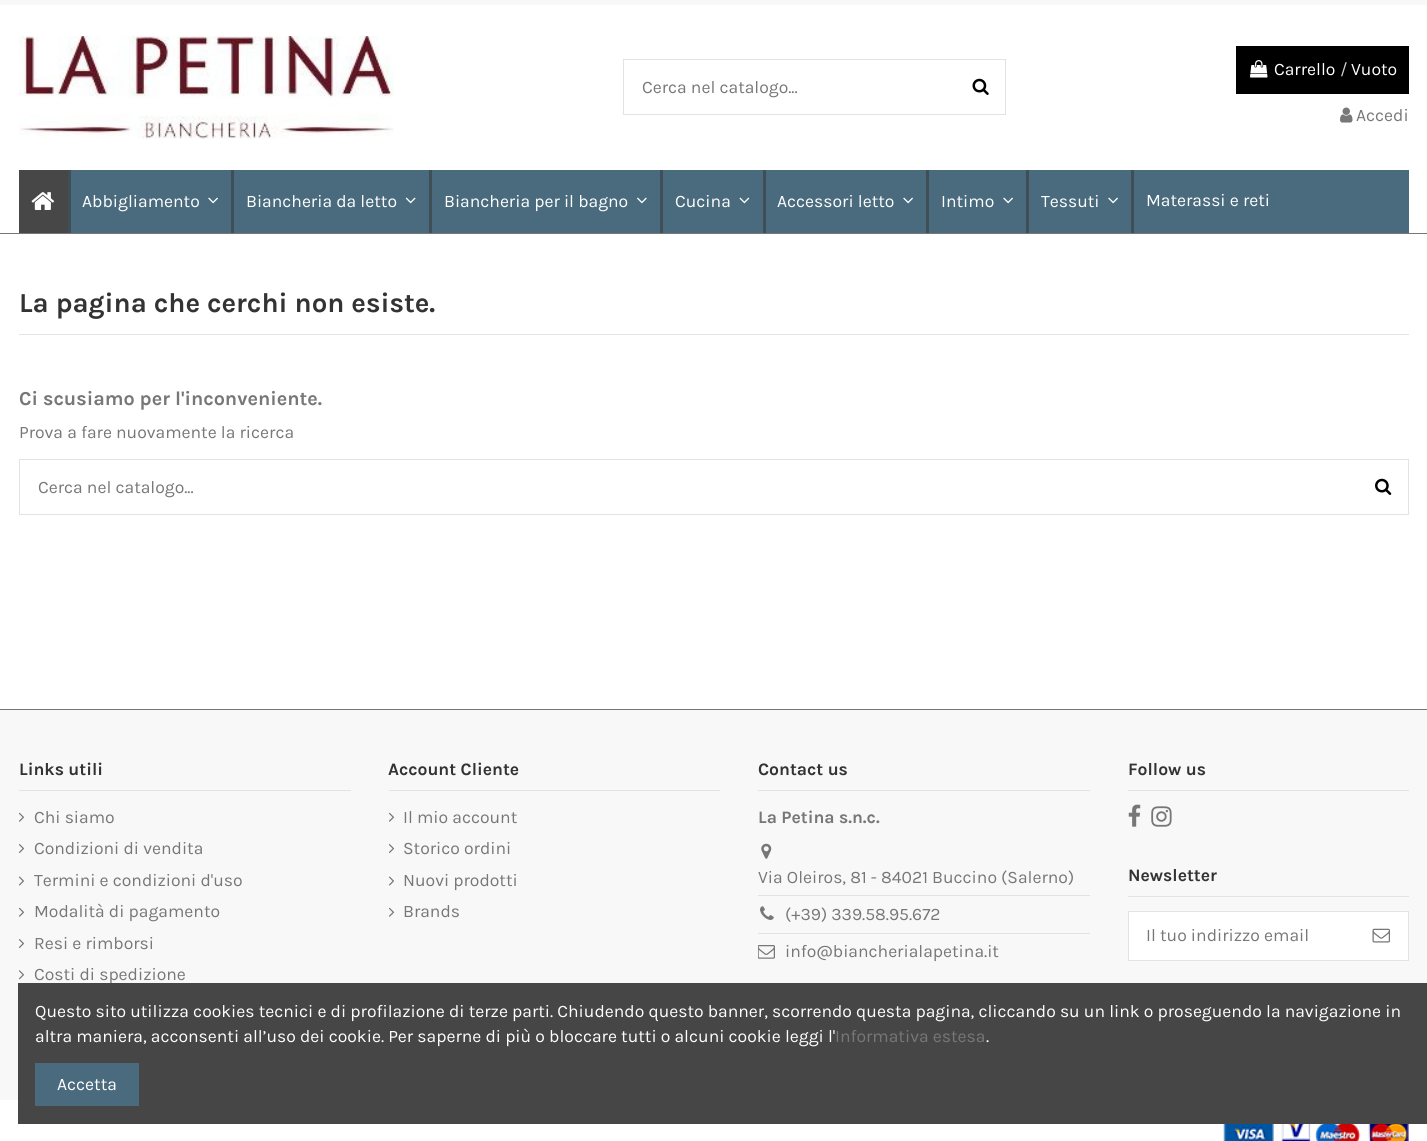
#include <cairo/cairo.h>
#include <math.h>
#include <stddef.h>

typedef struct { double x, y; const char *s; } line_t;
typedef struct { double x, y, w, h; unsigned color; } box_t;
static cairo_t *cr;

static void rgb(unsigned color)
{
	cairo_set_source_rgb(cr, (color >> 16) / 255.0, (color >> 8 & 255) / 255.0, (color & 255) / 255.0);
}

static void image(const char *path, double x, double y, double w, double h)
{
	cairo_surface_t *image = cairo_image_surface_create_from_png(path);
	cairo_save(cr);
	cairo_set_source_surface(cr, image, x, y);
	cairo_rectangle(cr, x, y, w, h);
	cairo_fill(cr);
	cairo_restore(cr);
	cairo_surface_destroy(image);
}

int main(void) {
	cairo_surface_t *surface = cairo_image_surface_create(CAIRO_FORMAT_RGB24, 1427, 1141);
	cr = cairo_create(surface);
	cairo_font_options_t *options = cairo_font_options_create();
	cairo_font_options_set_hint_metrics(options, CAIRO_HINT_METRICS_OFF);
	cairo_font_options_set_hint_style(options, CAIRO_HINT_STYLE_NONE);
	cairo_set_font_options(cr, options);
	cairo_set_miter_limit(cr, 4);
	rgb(0xffffff);
	cairo_paint(cr);
	rgb(0xf8f8f8);
	cairo_rectangle(cr, 0, 0, 1427, 5);
	cairo_fill(cr);
	image("img/1.png", 19, 36, 375, 103);
	cairo_rectangle(cr, 623.5, 59.5, 382, 55);
	rgb(0xe3e3e3);
	cairo_set_line_width(cr, 1);
	cairo_stroke(cr);
	image("img/2.png", 972, 78, 17, 17);
	rgb(0x000000);
	cairo_rectangle(cr, 1236, 46, 173, 48);
	cairo_fill(cr);
	image("img/3.png", 1250, 60, 18, 18);
	image("img/4.png", 1340, 107, 13, 16);
	rgb(0x496b7d);
	cairo_rectangle(cr, 71, 170, 1338, 63);
	cairo_fill(cr);
	rgb(0x474747);
	cairo_rectangle(cr, 19, 170, 49, 63);
	cairo_fill(cr);
	image("img/5.png", 31, 192, 24, 18);
	rgb(0x404f57);
	cairo_rectangle(cr, 68, 170, 3, 63);
	cairo_fill(cr);
	image("img/6.png", 208, 197, 10, 7);
	cairo_rectangle(cr, 231, 170, 3, 63);
	cairo_fill(cr);
	image("img/7.png", 405, 197, 11, 7);
	cairo_rectangle(cr, 429, 170, 3, 63);
	cairo_fill(cr);
	image("img/8.png", 637, 197, 10, 7);
	cairo_rectangle(cr, 660, 170, 3, 63);
	cairo_fill(cr);
	image("img/9.png", 739, 197, 11, 7);
	cairo_rectangle(cr, 763, 170, 3, 63);
	cairo_fill(cr);
	image("img/6.png", 903, 197, 10, 7);
	cairo_rectangle(cr, 926, 170, 3, 63);
	cairo_fill(cr);
	image("img/6.png", 1003, 197, 10, 7);
	cairo_rectangle(cr, 1026, 170, 3, 63);
	cairo_fill(cr);
	image("img/6.png", 1108, 197, 10, 7);
	{
		static const box_t items[] = {
			{1131, 170, 3, 63, 0x404f57},
			{0, 233, 1427, 1, 0x777777},
			{0, 709, 1427, 1, 0x777777},
			{19, 334, 1390, 1, 0xe3e3e3},
		};
		for (size_t i = 0; i < sizeof items / sizeof *items; i++) {
			rgb(items[i].color);
			cairo_rectangle(cr, items[i].x, items[i].y, items[i].w, items[i].h);
			cairo_fill(cr);
		}
	}
	cairo_rectangle(cr, 19.5, 459.5, 1389, 55);
	cairo_stroke(cr);
	image("img/10.png", 1375, 478, 17, 17);
	rgb(0xf8f8f8);
	cairo_rectangle(cr, 0, 710, 1427, 390);
	cairo_fill(cr);
	rgb(0xe3e3e3);
	cairo_rectangle(cr, 19, 790, 332, 1);
	cairo_fill(cr);
	image("img/11.png", 18, 812, 7, 10);
	image("img/12.png", 18, 844, 7, 9);
	image("img/13.png", 18, 876, 6, 10);
	image("img/11.png", 18, 907, 7, 10);
	image("img/12.png", 18, 939, 7, 9);
	image("img/14.png", 18, 970, 7, 10);
	cairo_rectangle(cr, 389, 790, 331, 1);
	cairo_fill(cr);
	image("img/11.png", 388, 812, 7, 10);
	image("img/12.png", 388, 844, 7, 9);
	image("img/13.png", 388, 876, 6, 10);
	image("img/11.png", 388, 907, 7, 10);
	cairo_rectangle(cr, 758, 790, 332, 1);
	cairo_fill(cr);
	image("img/15.png", 761, 843, 11, 16);
	rgb(0xe2e2e2);
	cairo_rectangle(cr, 758, 895, 332, 1);
	cairo_fill(cr);
	image("img/16.png", 760, 906, 14, 14);
	cairo_rectangle(cr, 758, 933, 332, 1);
	cairo_fill(cr);
	image("img/17.png", 758, 945, 17, 14);
	rgb(0xe3e3e3);
	cairo_rectangle(cr, 1128, 790, 281, 1);
	cairo_fill(cr);
	image("img/18.png", 1128, 804, 13, 23);
	image("img/19.png", 1151, 806, 21, 21);
	cairo_rectangle(cr, 1128, 896, 281, 1);
	cairo_fill(cr);
	rgb(0xffffff);
	cairo_rectangle(cr, 1128.5, 911.5, 280, 49);
	cairo_fill_preserve(cr);
	rgb(0xe3e3e3);
	cairo_stroke(cr);
	image("img/20.png", 1372, 928, 18, 15);
	image("img/21.png", 1223, 1124, 186, 17);
	cairo_select_font_face(cr, "Karla", CAIRO_FONT_SLANT_NORMAL, CAIRO_FONT_WEIGHT_NORMAL);
	cairo_set_font_size(cr, 17.5);
	rgb(0x777777);
	cairo_move_to(cr, 642, 93);
	cairo_show_text(cr, "Cerca nel catalogo...");
	rgb(0xffffff);
	cairo_move_to(cr, 1274, 75);
	cairo_show_text(cr, "Carrello");
	rgb(0xcccccc);
	cairo_move_to(cr, 1340, 75);
	cairo_show_text(cr, "/");
	rgb(0xffffff);
	cairo_move_to(cr, 1351, 75);
	cairo_show_text(cr, "Vuoto");
	rgb(0x777777);
	cairo_move_to(cr, 1356, 121);
	cairo_show_text(cr, "Accedi");
	rgb(0xffffff);
	{
		static const line_t items[] = {
			{82, 207, "Abbigliamento"},
			{246, 207, "Biancheria da letto"},
			{444, 207, "Biancheria per il bagno"},
			{675, 207, "Cucina"},
			{777, 207, "Accessori letto"},
			{941, 207, "Intimo"},
			{1041, 207, "Tessuti"},
			{1146, 206, "Materassi e reti"},
		};
		for (size_t i = 0; i < sizeof items / sizeof *items; i++) {
			cairo_move_to(cr, items[i].x, items[i].y);
			cairo_show_text(cr, items[i].s);
		}
	}
	cairo_select_font_face(cr, "Karla", CAIRO_FONT_SLANT_NORMAL, CAIRO_FONT_WEIGHT_BOLD);
	cairo_set_font_size(cr, 27.5);
	rgb(0x333333);
	cairo_move_to(cr, 19, 312);
	cairo_show_text(cr, "La pagina che cerchi non esiste.");
	cairo_set_font_size(cr, 19.75);
	rgb(0x777777);
	cairo_move_to(cr, 19, 405);
	cairo_show_text(cr, "Ci scusiamo per l'inconveniente.");
	cairo_select_font_face(cr, "Karla", CAIRO_FONT_SLANT_NORMAL, CAIRO_FONT_WEIGHT_NORMAL);
	cairo_set_font_size(cr, 17.5);
	cairo_move_to(cr, 19, 438);
	cairo_show_text(cr, "Prova a fare nuovamente la ricerca");
	cairo_move_to(cr, 38, 493);
	cairo_show_text(cr, "Cerca nel catalogo...");
	cairo_select_font_face(cr, "Karla", CAIRO_FONT_SLANT_NORMAL, CAIRO_FONT_WEIGHT_BOLD);
	rgb(0x333333);
	cairo_move_to(cr, 19, 775);
	cairo_show_text(cr, "Links utili");
	cairo_select_font_face(cr, "Karla", CAIRO_FONT_SLANT_NORMAL, CAIRO_FONT_WEIGHT_NORMAL);
	rgb(0x777777);
	{
		static const line_t items[] = {
			{34, 823, "Chi siamo"},
			{34, 854, "Condizioni di vendita"},
			{34, 886, "Termini e condizioni d'uso"},
			{34, 917, "Modalità di pagamento"},
			{34, 949, "Resi e rimborsi"},
			{34, 980, "Costi di spedizione"},
		};
		for (size_t i = 0; i < sizeof items / sizeof *items; i++) {
			cairo_move_to(cr, items[i].x, items[i].y);
			cairo_show_text(cr, items[i].s);
		}
	}
	cairo_select_font_face(cr, "Karla", CAIRO_FONT_SLANT_NORMAL, CAIRO_FONT_WEIGHT_BOLD);
	rgb(0x333333);
	cairo_move_to(cr, 388, 775);
	cairo_show_text(cr, "Account Cliente");
	cairo_select_font_face(cr, "Karla", CAIRO_FONT_SLANT_NORMAL, CAIRO_FONT_WEIGHT_NORMAL);
	rgb(0x777777);
	{
		static const line_t items[] = {
			{403, 823, "Il mio account"},
			{403, 854, "Storico ordini"},
			{403, 886, "Nuovi prodotti"},
			{403, 917, "Brands"},
		};
		for (size_t i = 0; i < sizeof items / sizeof *items; i++) {
			cairo_move_to(cr, items[i].x, items[i].y);
			cairo_show_text(cr, items[i].s);
		}
	}
	cairo_select_font_face(cr, "Karla", CAIRO_FONT_SLANT_NORMAL, CAIRO_FONT_WEIGHT_BOLD);
	rgb(0x333333);
	cairo_move_to(cr, 758, 775);
	cairo_show_text(cr, "Contact us");
	rgb(0x777777);
	cairo_move_to(cr, 758, 823);
	cairo_show_text(cr, "La Petina s.n.c.");
	cairo_select_font_face(cr, "Karla", CAIRO_FONT_SLANT_NORMAL, CAIRO_FONT_WEIGHT_NORMAL);
	{
		static const line_t items[] = {
			{758, 883, "Via Oleiros, 81 - 84021 Buccino (Salerno)"},
			{785, 920, "(+39) 339.58.95.672"},
			{785, 957, "info@biancherialapetina.it"},
		};
		for (size_t i = 0; i < sizeof items / sizeof *items; i++) {
			cairo_move_to(cr, items[i].x, items[i].y);
			cairo_show_text(cr, items[i].s);
		}
	}
	cairo_select_font_face(cr, "Karla", CAIRO_FONT_SLANT_NORMAL, CAIRO_FONT_WEIGHT_BOLD);
	rgb(0x333333);
	cairo_move_to(cr, 1128, 775);
	cairo_show_text(cr, "Follow us");
	cairo_move_to(cr, 1128, 881);
	cairo_show_text(cr, "Newsletter");
	cairo_select_font_face(cr, "Karla", CAIRO_FONT_SLANT_NORMAL, CAIRO_FONT_WEIGHT_NORMAL);
	rgb(0x777777);
	cairo_move_to(cr, 1146, 941);
	cairo_show_text(cr, "Il tuo indirizzo email");
	rgb(0x464646);
	cairo_rectangle(cr, 18, 983, 1409, 141);
	cairo_fill(cr);
	rgb(0xffffff);
	cairo_move_to(cr, 35, 1017);
	cairo_show_text(cr, "Questo sito utilizza cookies tecnici e di profilazione di terze parti. Chiudendo questo banner, scorrendo questa pagina, cliccando su un link o proseguendo la navigazione in");
	cairo_move_to(cr, 35, 1042);
	cairo_show_text(cr, "altra maniera, acconsenti all’uso dei cookie. Per saperne di più o bloccare tutti o alcuni cookie leggi l'");
	rgb(0x777777);
	cairo_move_to(cr, 835, 1042);
	cairo_show_text(cr, "Informativa estesa");
	rgb(0xffffff);
	cairo_move_to(cr, 986, 1042);
	cairo_show_text(cr, ".");
	rgb(0x496b7d);
	cairo_rectangle(cr, 35, 1063, 104, 43);
	cairo_fill(cr);
	rgb(0xffffff);
	cairo_move_to(cr, 57, 1090);
	cairo_show_text(cr, "Accetta");
	cairo_surface_write_to_png(surface, "page.png");
	cairo_font_options_destroy(options);
	cairo_destroy(cr);
	cairo_surface_destroy(surface);
	return 0;
}
